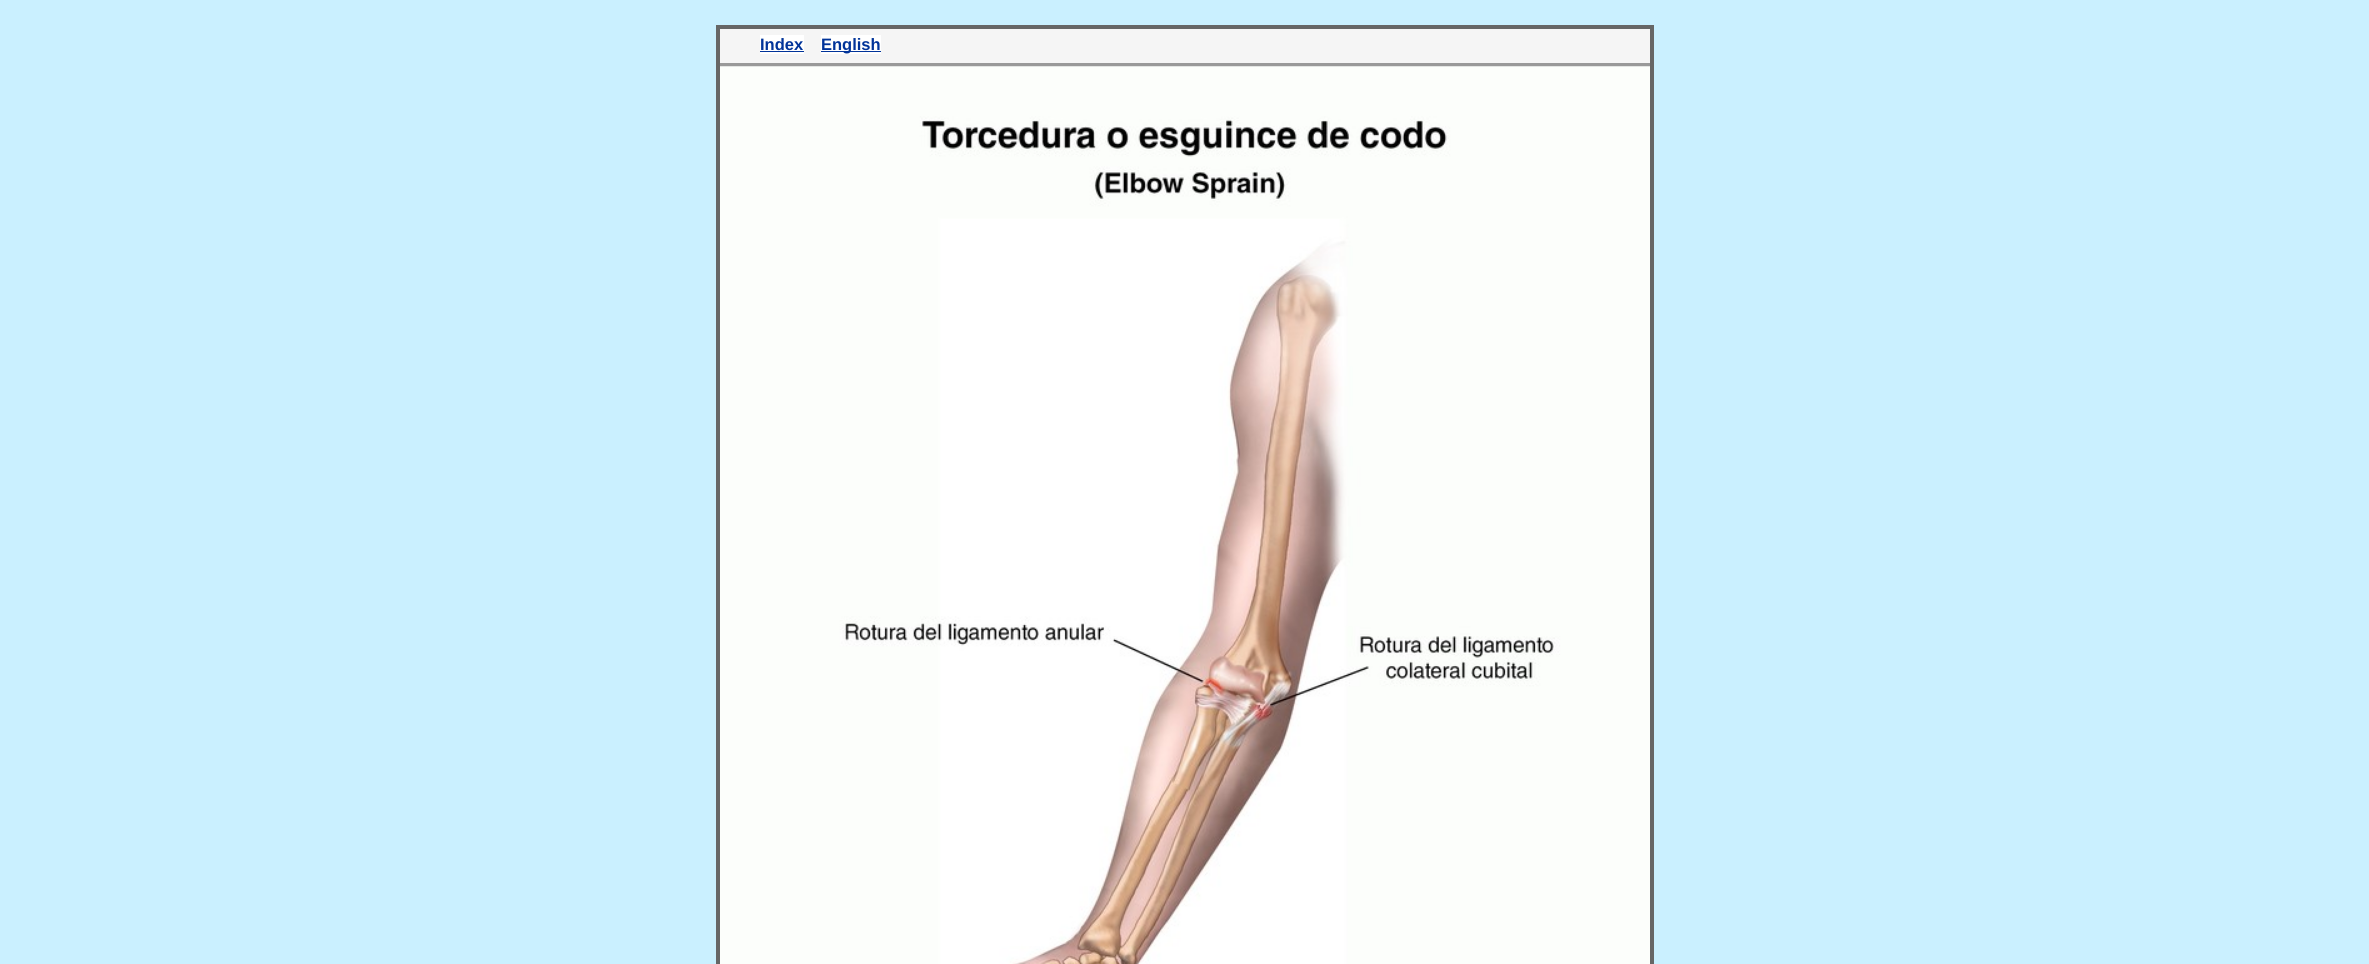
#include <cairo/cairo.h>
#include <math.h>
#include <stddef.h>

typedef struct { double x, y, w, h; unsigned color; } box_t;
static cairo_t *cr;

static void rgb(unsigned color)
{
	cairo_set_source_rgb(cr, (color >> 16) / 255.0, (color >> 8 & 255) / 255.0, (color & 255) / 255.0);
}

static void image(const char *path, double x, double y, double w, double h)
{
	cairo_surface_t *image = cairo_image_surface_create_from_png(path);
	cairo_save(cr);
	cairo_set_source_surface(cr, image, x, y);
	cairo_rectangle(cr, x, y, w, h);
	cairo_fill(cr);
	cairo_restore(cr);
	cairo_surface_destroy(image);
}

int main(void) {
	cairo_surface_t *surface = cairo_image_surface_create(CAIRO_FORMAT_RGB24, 2369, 964);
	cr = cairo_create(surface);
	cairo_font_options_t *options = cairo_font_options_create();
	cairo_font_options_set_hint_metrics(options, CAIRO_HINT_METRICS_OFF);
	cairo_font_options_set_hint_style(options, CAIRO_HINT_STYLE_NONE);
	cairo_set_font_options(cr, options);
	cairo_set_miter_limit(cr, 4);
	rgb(0xcaf0ff);
	cairo_paint(cr);
	rgb(0xf5f5f5);
	cairo_rectangle(cr, 720, 29, 930, 34);
	cairo_fill(cr);
	cairo_rectangle(cr, 718, 27, 934, 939);
	rgb(0x666666);
	cairo_set_line_width(cr, 4);
	cairo_stroke(cr);
	{
		static const box_t items[] = {
			{720, 63, 930, 4, 0x999999},
			{760, 35, 44, 19, 0xffffff},
			{760, 51, 44, 1, 0x003399},
			{821, 35, 60, 19, 0xffffff},
			{821, 51, 60, 1, 0x003399},
		};
		for (size_t i = 0; i < sizeof items / sizeof *items; i++) {
			rgb(items[i].color);
			cairo_rectangle(cr, items[i].x, items[i].y, items[i].w, items[i].h);
			cairo_fill(cr);
		}
	}
	image("img/1.png", 720, 66, 930, 898);
	cairo_select_font_face(cr, "Liberation Sans", CAIRO_FONT_SLANT_NORMAL, CAIRO_FONT_WEIGHT_BOLD);
	cairo_set_font_size(cr, 16.5);
	cairo_move_to(cr, 760, 50);
	cairo_show_text(cr, "Index");
	cairo_move_to(cr, 821, 50);
	cairo_show_text(cr, "English");
	cairo_surface_write_to_png(surface, "page.png");
	cairo_font_options_destroy(options);
	cairo_destroy(cr);
	cairo_surface_destroy(surface);
	return 0;
}
